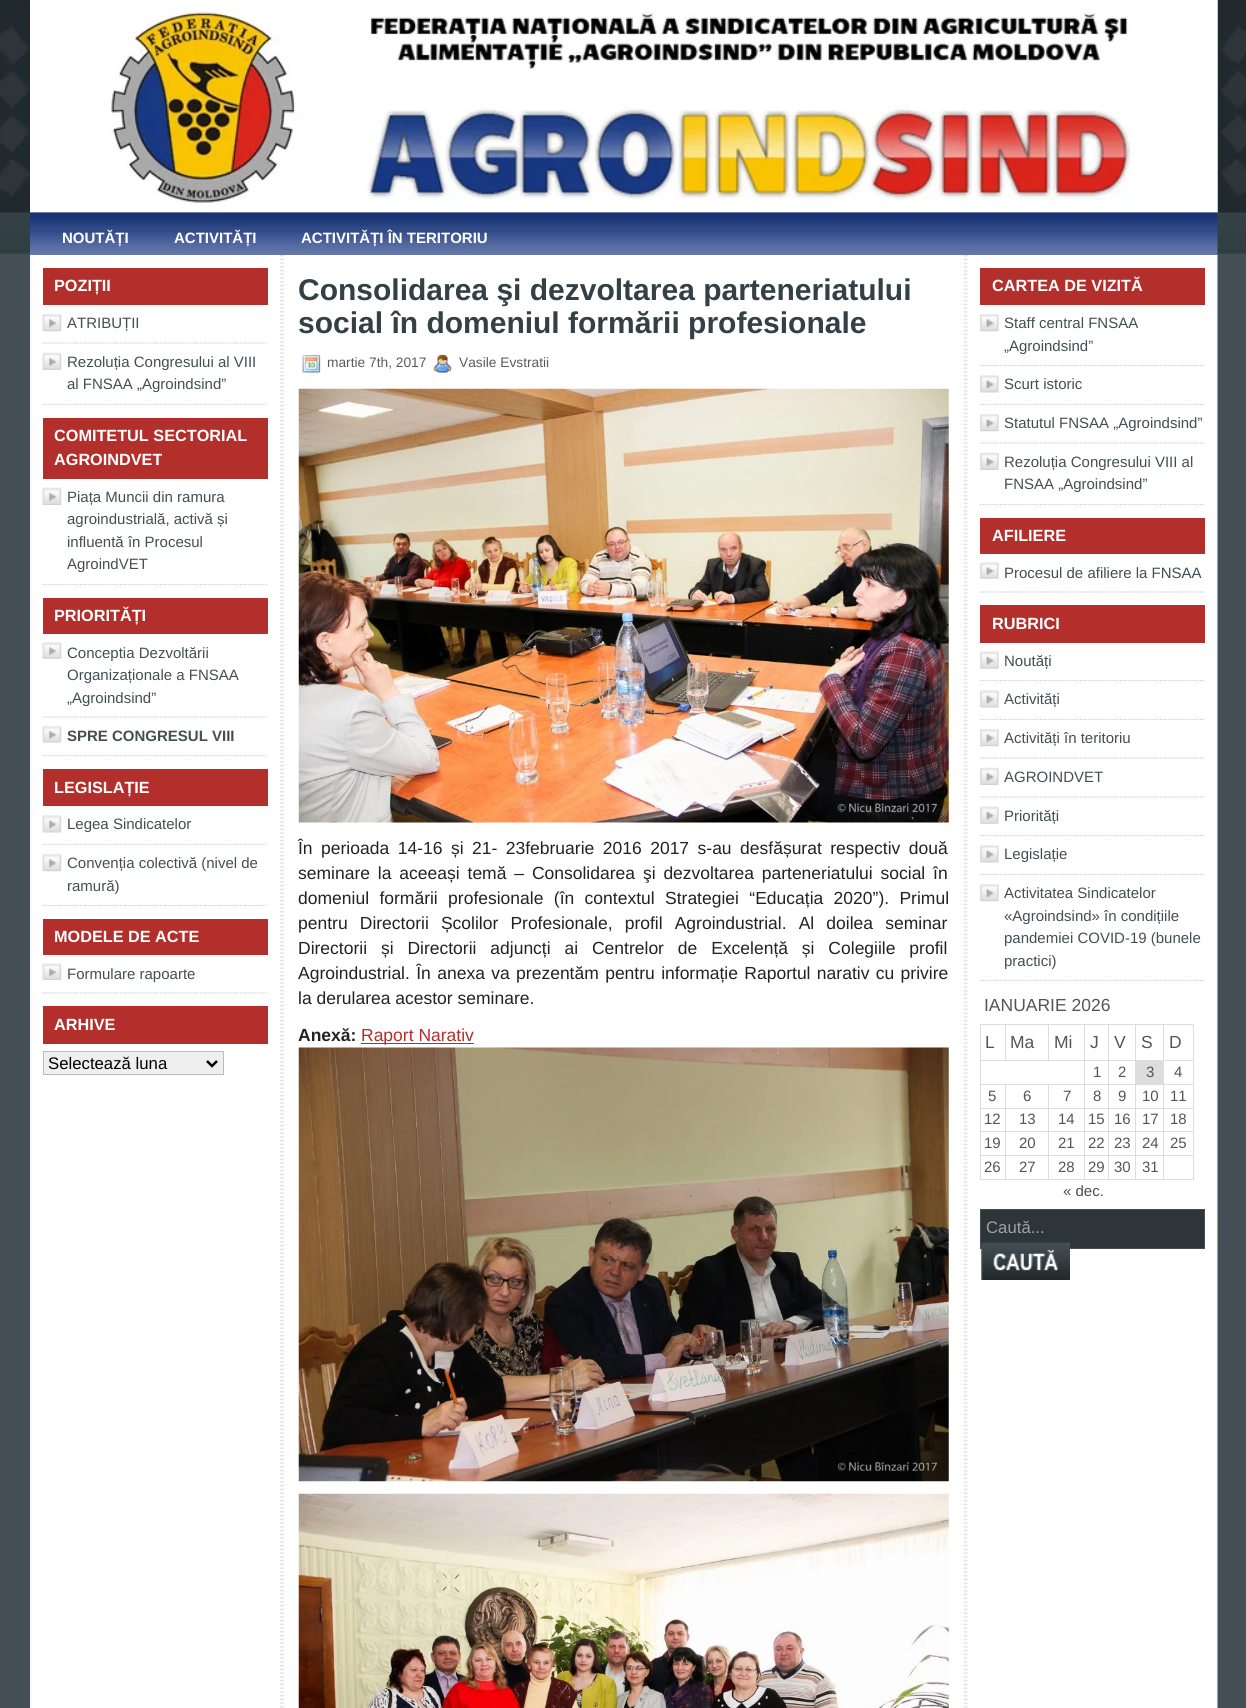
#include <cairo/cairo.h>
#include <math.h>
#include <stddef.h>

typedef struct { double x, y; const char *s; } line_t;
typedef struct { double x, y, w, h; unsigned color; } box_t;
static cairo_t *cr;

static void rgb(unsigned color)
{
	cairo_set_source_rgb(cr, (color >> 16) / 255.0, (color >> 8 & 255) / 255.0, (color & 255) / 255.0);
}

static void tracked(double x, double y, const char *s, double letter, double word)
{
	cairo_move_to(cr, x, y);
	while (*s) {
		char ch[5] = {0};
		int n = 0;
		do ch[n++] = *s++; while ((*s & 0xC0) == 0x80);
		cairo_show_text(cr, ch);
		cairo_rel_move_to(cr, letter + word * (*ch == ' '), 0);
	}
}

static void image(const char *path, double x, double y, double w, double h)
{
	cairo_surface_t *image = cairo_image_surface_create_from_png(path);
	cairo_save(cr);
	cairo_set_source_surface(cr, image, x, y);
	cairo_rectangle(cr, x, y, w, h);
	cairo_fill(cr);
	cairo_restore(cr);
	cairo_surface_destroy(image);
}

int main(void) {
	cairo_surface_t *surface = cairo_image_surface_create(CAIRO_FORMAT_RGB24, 1246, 1708);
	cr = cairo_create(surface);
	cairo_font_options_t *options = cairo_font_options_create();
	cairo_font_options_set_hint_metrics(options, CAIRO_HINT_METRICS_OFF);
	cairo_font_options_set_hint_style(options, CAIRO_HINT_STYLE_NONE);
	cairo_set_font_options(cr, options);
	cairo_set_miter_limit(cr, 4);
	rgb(0x434f54);
	cairo_paint(cr);
	image("img/1.png", 0, 0, 1246, 254);
	image("img/2.png", 0, 25, 1246, 188);
	image("img/3.png", 30, 0, 1188, 213);
	image("img/4.png", 30, 0, 1188, 213);
	image("img/5.png", 30, 212, 1188, 43);
	image("img/6.png", 30, 255, 1188, 1453);
	rgb(0xb22f2b);
	cairo_rectangle(cr, 43, 268, 225, 37);
	cairo_fill(cr);
	image("img/7.png", 42, 314, 20, 18);
	cairo_new_path(cr);
	cairo_move_to(cr, 42.5, 343);
	cairo_line_to(cr, 267.5, 343);
	rgb(0xcacfd1);
	cairo_set_line_width(cr, 1.2);
	cairo_set_dash(cr, (double[]){1.25, 1.25}, 2, 0);
	cairo_stroke(cr);
	image("img/8.png", 42, 352, 20, 18);
	cairo_new_path(cr);
	cairo_move_to(cr, 42.5, 404.5);
	cairo_line_to(cr, 267.5, 404.5);
	cairo_stroke(cr);
	rgb(0xb22f2b);
	cairo_rectangle(cr, 43, 418, 225, 61);
	cairo_fill(cr);
	image("img/8.png", 42, 487, 20, 18);
	cairo_new_path(cr);
	cairo_move_to(cr, 42.5, 584.5);
	cairo_line_to(cr, 267.5, 584.5);
	rgb(0xcacfd1);
	cairo_stroke(cr);
	rgb(0xb22f2b);
	cairo_rectangle(cr, 43, 598, 225, 36);
	cairo_fill(cr);
	image("img/9.png", 42, 642, 20, 17);
	cairo_new_path(cr);
	cairo_move_to(cr, 42.5, 717);
	cairo_line_to(cr, 267.5, 717);
	rgb(0xcacfd1);
	cairo_stroke(cr);
	image("img/10.png", 42, 726, 20, 17);
	cairo_new_path(cr);
	cairo_move_to(cr, 42.5, 755.5);
	cairo_line_to(cr, 267.5, 755.5);
	cairo_stroke(cr);
	rgb(0xb22f2b);
	cairo_rectangle(cr, 43, 769, 225, 37);
	cairo_fill(cr);
	image("img/11.png", 42, 815, 20, 18);
	cairo_new_path(cr);
	cairo_move_to(cr, 42.5, 844.5);
	cairo_line_to(cr, 267.5, 844.5);
	rgb(0xcacfd1);
	cairo_stroke(cr);
	image("img/7.png", 42, 854, 20, 18);
	cairo_new_path(cr);
	cairo_move_to(cr, 42.5, 905.5);
	cairo_line_to(cr, 267.5, 905.5);
	cairo_stroke(cr);
	rgb(0xb22f2b);
	cairo_rectangle(cr, 43, 919, 225, 36);
	cairo_fill(cr);
	image("img/12.png", 42, 963, 20, 17);
	cairo_new_path(cr);
	cairo_move_to(cr, 42.5, 993);
	cairo_line_to(cr, 267.5, 993);
	rgb(0xcacfd1);
	cairo_stroke(cr);
	rgb(0xb22f2b);
	cairo_rectangle(cr, 43, 1006, 225, 38);
	cairo_fill(cr);
	rgb(0xefefef);
	cairo_rectangle(cr, 43.5, 1051.5, 180, 23);
	cairo_fill_preserve(cr);
	rgb(0xbbbbbb);
	cairo_set_line_width(cr, 1);
	cairo_set_dash(cr, NULL, 0, 0);
	cairo_stroke(cr);
	cairo_new_path(cr);
	cairo_move_to(cr, 207, 1061);
	cairo_line_to(cr, 212, 1066);
	cairo_line_to(cr, 217, 1061);
	rgb(0x000000);
	cairo_set_line_width(cr, 2.5);
	cairo_stroke(cr);
	image("img/13.png", 302, 354, 19, 19);
	image("img/14.png", 433, 354, 19, 19);
	image("img/15.png", 298, 388, 651, 435);
	rgb(0xb22f2b);
	cairo_rectangle(cr, 361, 1043, 113, 1);
	cairo_fill(cr);
	image("img/16.png", 298, 1047, 651, 435);
	image("img/17.png", 298, 1493, 651, 215);
	cairo_rectangle(cr, 980, 268, 225, 37);
	cairo_fill(cr);
	image("img/18.png", 980, 314, 19, 18);
	cairo_new_path(cr);
	cairo_move_to(cr, 980, 365.5);
	cairo_line_to(cr, 1205, 365.5);
	rgb(0xcacfd1);
	cairo_set_line_width(cr, 1.2);
	cairo_set_dash(cr, (double[]){1.25, 1.25}, 2, 0);
	cairo_stroke(cr);
	image("img/19.png", 980, 375, 19, 18);
	cairo_new_path(cr);
	cairo_move_to(cr, 980, 404.5);
	cairo_line_to(cr, 1205, 404.5);
	cairo_stroke(cr);
	image("img/18.png", 980, 414, 19, 18);
	cairo_new_path(cr);
	cairo_move_to(cr, 980, 443);
	cairo_line_to(cr, 1205, 443);
	cairo_stroke(cr);
	image("img/20.png", 980, 452, 19, 18);
	cairo_new_path(cr);
	cairo_move_to(cr, 980, 504.5);
	cairo_line_to(cr, 1205, 504.5);
	cairo_stroke(cr);
	rgb(0xb22f2b);
	cairo_rectangle(cr, 980, 518, 225, 36);
	cairo_fill(cr);
	image("img/21.png", 980, 562, 19, 17);
	cairo_new_path(cr);
	cairo_move_to(cr, 980, 592);
	cairo_line_to(cr, 1205, 592);
	rgb(0xcacfd1);
	cairo_stroke(cr);
	rgb(0xb22f2b);
	cairo_rectangle(cr, 980, 605, 225, 38);
	cairo_fill(cr);
	image("img/22.png", 980, 651, 19, 18);
	cairo_new_path(cr);
	cairo_move_to(cr, 980, 680.5);
	cairo_line_to(cr, 1205, 680.5);
	rgb(0xcacfd1);
	cairo_stroke(cr);
	image("img/19.png", 980, 690, 19, 18);
	cairo_new_path(cr);
	cairo_move_to(cr, 980, 719.5);
	cairo_line_to(cr, 1205, 719.5);
	cairo_stroke(cr);
	image("img/18.png", 980, 729, 19, 18);
	cairo_new_path(cr);
	cairo_move_to(cr, 980, 758);
	cairo_line_to(cr, 1205, 758);
	cairo_stroke(cr);
	image("img/20.png", 980, 767, 19, 18);
	cairo_new_path(cr);
	cairo_move_to(cr, 980, 797);
	cairo_line_to(cr, 1205, 797);
	cairo_stroke(cr);
	image("img/22.png", 980, 806, 19, 18);
	cairo_new_path(cr);
	cairo_move_to(cr, 980, 835.5);
	cairo_line_to(cr, 1205, 835.5);
	cairo_stroke(cr);
	image("img/19.png", 980, 845, 19, 18);
	cairo_new_path(cr);
	cairo_move_to(cr, 980, 874.5);
	cairo_line_to(cr, 1205, 874.5);
	cairo_stroke(cr);
	image("img/18.png", 980, 884, 19, 18);
	cairo_new_path(cr);
	cairo_move_to(cr, 980, 980.5);
	cairo_line_to(cr, 1205, 980.5);
	cairo_stroke(cr);
	{
		static const box_t items[] = {
			{1163, 1024, 31, 1, 0xdddddd},
			{1135, 1060, 59, 1, 0xdddddd},
			{1163, 1024, 1, 37, 0xdddddd},
			{1135, 1024, 29, 1, 0xdddddd},
			{1163, 1084, 31, 1, 0xdddddd},
			{1163, 1108, 31, 1, 0xdddddd},
			{1163, 1131, 31, 1, 0xdddddd},
			{1163, 1155, 31, 1, 0xdddddd},
			{1193, 1155, 1, 25, 0xdddddd},
			{1163, 1179, 31, 1, 0xdddddd},
			{1163, 1155, 1, 25, 0xdddddd},
			{1135, 1155, 29, 1, 0xdddddd},
			{1163, 1131, 1, 25, 0xdddddd},
			{1135, 1131, 29, 1, 0xdddddd},
			{1163, 1108, 1, 25, 0xdddddd},
			{1135, 1108, 29, 1, 0xdddddd},
			{1163, 1084, 1, 25, 0xdddddd},
			{1135, 1084, 29, 1, 0xdddddd},
			{1135, 1179, 29, 1, 0xdddddd},
			{1135, 1155, 1, 25, 0xdddddd},
			{1108, 1155, 28, 1, 0xdddddd},
			{1135, 1131, 1, 25, 0xdddddd},
			{1108, 1131, 28, 1, 0xdddddd},
			{1135, 1108, 1, 25, 0xdddddd},
			{1108, 1108, 28, 1, 0xdddddd},
			{1135, 1084, 1, 25, 0xdddddd},
			{1108, 1084, 28, 1, 0xdddddd},
			{1135, 1060, 1, 25, 0xdddddd},
			{1108, 1060, 28, 1, 0xdddddd},
			{1135, 1024, 1, 37, 0xdddddd},
			{1108, 1024, 28, 1, 0xdddddd},
			{1108, 1179, 28, 1, 0xdddddd},
			{1108, 1155, 1, 25, 0xdddddd},
			{1084, 1155, 25, 1, 0xdddddd},
			{1108, 1131, 1, 25, 0xdddddd},
			{1084, 1131, 25, 1, 0xdddddd},
			{1108, 1108, 1, 25, 0xdddddd},
			{1084, 1108, 25, 1, 0xdddddd},
			{1108, 1084, 1, 25, 0xdddddd},
			{1084, 1084, 25, 1, 0xdddddd},
			{1108, 1060, 1, 25, 0xdddddd},
			{1084, 1060, 25, 1, 0xdddddd},
			{1108, 1024, 1, 37, 0xdddddd},
			{1084, 1024, 25, 1, 0xdddddd},
			{1084, 1179, 25, 1, 0xdddddd},
			{1084, 1155, 1, 25, 0xdddddd},
			{1048, 1155, 37, 1, 0xdddddd},
			{1084, 1131, 1, 25, 0xdddddd},
			{1048, 1131, 37, 1, 0xdddddd},
			{1084, 1108, 1, 25, 0xdddddd},
			{1048, 1108, 37, 1, 0xdddddd},
			{1084, 1084, 1, 25, 0xdddddd},
			{1048, 1084, 37, 1, 0xdddddd},
			{1084, 1060, 1, 25, 0xdddddd},
			{980, 1060, 105, 1, 0xdddddd},
			{1084, 1024, 1, 37, 0xdddddd},
			{1048, 1024, 37, 1, 0xdddddd},
			{1048, 1024, 1, 37, 0xdddddd},
			{1005, 1024, 44, 1, 0xdddddd},
			{1005, 1024, 1, 37, 0xdddddd},
			{980, 1024, 26, 1, 0xdddddd},
			{1048, 1179, 37, 1, 0xdddddd},
			{1048, 1155, 1, 25, 0xdddddd},
			{1005, 1155, 44, 1, 0xdddddd},
			{1048, 1131, 1, 25, 0xdddddd},
			{1005, 1131, 44, 1, 0xdddddd},
			{1048, 1108, 1, 25, 0xdddddd},
			{1005, 1108, 44, 1, 0xdddddd},
			{1048, 1084, 1, 25, 0xdddddd},
			{1005, 1084, 44, 1, 0xdddddd},
			{1005, 1179, 44, 1, 0xdddddd},
			{1005, 1155, 1, 25, 0xdddddd},
			{980, 1155, 26, 1, 0xdddddd},
			{1005, 1131, 1, 25, 0xdddddd},
			{980, 1131, 26, 1, 0xdddddd},
			{1005, 1108, 1, 25, 0xdddddd},
			{980, 1108, 26, 1, 0xdddddd},
			{1005, 1084, 1, 25, 0xdddddd},
			{980, 1084, 26, 1, 0xdddddd},
			{980, 1179, 26, 1, 0xdddddd},
			{980, 1155, 1, 25, 0xdddddd},
			{980, 1131, 1, 25, 0xdddddd},
			{980, 1108, 1, 25, 0xdddddd},
			{980, 1084, 1, 25, 0xdddddd},
			{980, 1060, 1, 25, 0xdddddd},
			{980, 1024, 1, 37, 0xdddddd},
			{1193, 1131, 1, 25, 0xdddddd},
			{1193, 1108, 1, 25, 0xdddddd},
			{1193, 1084, 1, 25, 0xdddddd},
			{1193, 1060, 1, 25, 0xdddddd},
			{1193, 1024, 1, 37, 0xdddddd},
			{1136, 1061, 28, 23, 0xdddddd},
		};
		for (size_t i = 0; i < sizeof items / sizeof *items; i++) {
			rgb(items[i].color);
			cairo_rectangle(cr, items[i].x, items[i].y, items[i].w, items[i].h);
			cairo_fill(cr);
		}
	}
	rgb(0x2d3538);
	cairo_rectangle(cr, 980.5, 1209.5, 224, 39);
	cairo_fill_preserve(cr);
	rgb(0x434f54);
	cairo_set_line_width(cr, 1);
	cairo_set_dash(cr, NULL, 0, 0);
	cairo_stroke(cr);
	image("img/23.png", 981, 1242, 89, 38);
	cairo_select_font_face(cr, "Liberation Sans", CAIRO_FONT_SLANT_NORMAL, CAIRO_FONT_WEIGHT_BOLD);
	cairo_set_font_size(cr, 15);
	rgb(0xffffff);
	{
		static const line_t items[] = {
			{62, 243, "NOUTĂȚI"},
			{174, 243, "ACTIVITĂȚI"},
			{301, 243, "ACTIVITĂȚI ÎN TERITORIU"},
		};
		for (size_t i = 0; i < sizeof items / sizeof *items; i++) {
			cairo_move_to(cr, items[i].x, items[i].y);
			cairo_show_text(cr, items[i].s);
		}
	}
	cairo_set_font_size(cr, 16.25);
	cairo_move_to(cr, 54, 291);
	cairo_show_text(cr, "POZIȚII");
	cairo_select_font_face(cr, "Liberation Sans", CAIRO_FONT_SLANT_NORMAL, CAIRO_FONT_WEIGHT_NORMAL);
	cairo_set_font_size(cr, 15);
	rgb(0x434f54);
	{
		static const line_t items[] = {
			{67, 328, "ATRIBUȚII"},
			{67, 367, "Rezoluția Congresului al VIII"},
			{67, 389, "al FNSAA „Agroindsind”"},
		};
		for (size_t i = 0; i < sizeof items / sizeof *items; i++) {
			cairo_move_to(cr, items[i].x, items[i].y);
			cairo_show_text(cr, items[i].s);
		}
	}
	cairo_select_font_face(cr, "Liberation Sans", CAIRO_FONT_SLANT_NORMAL, CAIRO_FONT_WEIGHT_BOLD);
	cairo_set_font_size(cr, 16.25);
	rgb(0xffffff);
	cairo_move_to(cr, 54, 441);
	cairo_show_text(cr, "COMITETUL SECTORIAL");
	cairo_move_to(cr, 54, 465);
	cairo_show_text(cr, "AGROINDVET");
	cairo_select_font_face(cr, "Liberation Sans", CAIRO_FONT_SLANT_NORMAL, CAIRO_FONT_WEIGHT_NORMAL);
	cairo_set_font_size(cr, 15);
	rgb(0x434f54);
	{
		static const line_t items[] = {
			{67, 502, "Piața Muncii din ramura"},
			{67, 524, "agroindustrială, activă și"},
			{67, 547, "influentă în Procesul"},
			{67, 569, "AgroindVET"},
		};
		for (size_t i = 0; i < sizeof items / sizeof *items; i++) {
			cairo_move_to(cr, items[i].x, items[i].y);
			cairo_show_text(cr, items[i].s);
		}
	}
	cairo_select_font_face(cr, "Liberation Sans", CAIRO_FONT_SLANT_NORMAL, CAIRO_FONT_WEIGHT_BOLD);
	cairo_set_font_size(cr, 16.25);
	rgb(0xffffff);
	cairo_move_to(cr, 54, 621);
	cairo_show_text(cr, "PRIORITĂȚI");
	cairo_select_font_face(cr, "Liberation Sans", CAIRO_FONT_SLANT_NORMAL, CAIRO_FONT_WEIGHT_NORMAL);
	cairo_set_font_size(cr, 15);
	rgb(0x434f54);
	{
		static const line_t items[] = {
			{67, 658, "Conceptia Dezvoltării"},
			{67, 680, "Organizaționale a FNSAA"},
			{67, 703, "„Agroindsind”"},
		};
		for (size_t i = 0; i < sizeof items / sizeof *items; i++) {
			cairo_move_to(cr, items[i].x, items[i].y);
			cairo_show_text(cr, items[i].s);
		}
	}
	cairo_select_font_face(cr, "Liberation Sans", CAIRO_FONT_SLANT_NORMAL, CAIRO_FONT_WEIGHT_BOLD);
	cairo_move_to(cr, 67, 741);
	cairo_show_text(cr, "SPRE CONGRESUL VIII");
	cairo_set_font_size(cr, 16.25);
	rgb(0xffffff);
	cairo_move_to(cr, 54, 793);
	cairo_show_text(cr, "LEGISLAȚIE");
	cairo_select_font_face(cr, "Liberation Sans", CAIRO_FONT_SLANT_NORMAL, CAIRO_FONT_WEIGHT_NORMAL);
	cairo_set_font_size(cr, 15);
	rgb(0x434f54);
	{
		static const line_t items[] = {
			{67, 829, "Legea Sindicatelor"},
			{67, 868, "Convenția colectivă (nivel de"},
			{67, 891, "ramură)"},
		};
		for (size_t i = 0; i < sizeof items / sizeof *items; i++) {
			cairo_move_to(cr, items[i].x, items[i].y);
			cairo_show_text(cr, items[i].s);
		}
	}
	cairo_select_font_face(cr, "Liberation Sans", CAIRO_FONT_SLANT_NORMAL, CAIRO_FONT_WEIGHT_BOLD);
	cairo_set_font_size(cr, 16.25);
	rgb(0xffffff);
	cairo_move_to(cr, 54, 942);
	cairo_show_text(cr, "MODELE DE ACTE");
	cairo_select_font_face(cr, "Liberation Sans", CAIRO_FONT_SLANT_NORMAL, CAIRO_FONT_WEIGHT_NORMAL);
	cairo_set_font_size(cr, 15);
	rgb(0x434f54);
	cairo_move_to(cr, 67, 979);
	cairo_show_text(cr, "Formulare rapoarte");
	cairo_select_font_face(cr, "Liberation Sans", CAIRO_FONT_SLANT_NORMAL, CAIRO_FONT_WEIGHT_BOLD);
	cairo_set_font_size(cr, 16.25);
	rgb(0xffffff);
	cairo_move_to(cr, 54, 1030);
	cairo_show_text(cr, "ARHIVE");
	cairo_select_font_face(cr, "Liberation Sans", CAIRO_FONT_SLANT_NORMAL, CAIRO_FONT_WEIGHT_NORMAL);
	cairo_set_font_size(cr, 16.75);
	rgb(0x000000);
	cairo_move_to(cr, 48, 1069);
	cairo_show_text(cr, "Selectează luna");
	cairo_select_font_face(cr, "Liberation Sans", CAIRO_FONT_SLANT_NORMAL, CAIRO_FONT_WEIGHT_BOLD);
	cairo_set_font_size(cr, 30);
	rgb(0x334045);
	cairo_move_to(cr, 298, 300);
	cairo_show_text(cr, "Consolidarea şi dezvoltarea parteneriatului");
	cairo_move_to(cr, 298, 333);
	cairo_show_text(cr, "social în domeniul formării profesionale");
	cairo_select_font_face(cr, "Liberation Sans", CAIRO_FONT_SLANT_NORMAL, CAIRO_FONT_WEIGHT_NORMAL);
	cairo_set_font_size(cr, 13.75);
	rgb(0x5b5b5b);
	cairo_move_to(cr, 327, 367);
	cairo_show_text(cr, "martie 7th, 2017");
	cairo_move_to(cr, 459, 367);
	cairo_show_text(cr, "Vasile Evstratii");
	cairo_set_font_size(cr, 17.5);
	rgb(0x222222);
	tracked(298, 854, "În perioada 14-16 și 21- 23februarie 2016 2017 s-au desfășurat respectiv două", 0, 3.6);
	tracked(298, 879, "seminare la aceeași temă – Consolidarea şi dezvoltarea parteneriatului social în", 0, 3);
	tracked(298, 904, "domeniul formării profesionale (în contextul Strategiei “Educația 2020”). Primul", 0, 5.5);
	tracked(298, 929, "pentru Directorii Școlilor Profesionale, profil Agroindustrial. Al doilea seminar", 0, 7.25);
	tracked(298, 954, "Directorii și Directorii adjuncți ai Centrelor de Excelență și Colegiile profil", 0, 9);
	tracked(298, 979, "Agroindustrial. În anexa va prezentăm pentru informație Raportul narativ cu privire", 0, 1.5);
	cairo_move_to(cr, 298, 1004);
	cairo_show_text(cr, "la derularea acestor seminare.");
	cairo_select_font_face(cr, "Liberation Sans", CAIRO_FONT_SLANT_NORMAL, CAIRO_FONT_WEIGHT_BOLD);
	cairo_move_to(cr, 298, 1041);
	cairo_show_text(cr, "Anexă:");
	cairo_select_font_face(cr, "Liberation Sans", CAIRO_FONT_SLANT_NORMAL, CAIRO_FONT_WEIGHT_NORMAL);
	rgb(0xb22f2b);
	cairo_move_to(cr, 361, 1041);
	cairo_show_text(cr, "Raport Narativ");
	cairo_select_font_face(cr, "Liberation Sans", CAIRO_FONT_SLANT_NORMAL, CAIRO_FONT_WEIGHT_BOLD);
	cairo_set_font_size(cr, 16.25);
	rgb(0xffffff);
	cairo_move_to(cr, 992, 291);
	cairo_show_text(cr, "CARTEA DE VIZITĂ");
	cairo_select_font_face(cr, "Liberation Sans", CAIRO_FONT_SLANT_NORMAL, CAIRO_FONT_WEIGHT_NORMAL);
	cairo_set_font_size(cr, 15);
	rgb(0x434f54);
	{
		static const line_t items[] = {
			{1004, 328, "Staff central FNSAA"},
			{1004, 351, "„Agroindsind”"},
			{1004, 389, "Scurt istoric"},
			{1004, 428, "Statutul FNSAA „Agroindsind”"},
			{1004, 467, "Rezoluția Congresului VIII al"},
			{1004, 489, "FNSAA „Agroindsind”"},
		};
		for (size_t i = 0; i < sizeof items / sizeof *items; i++) {
			cairo_move_to(cr, items[i].x, items[i].y);
			cairo_show_text(cr, items[i].s);
		}
	}
	cairo_select_font_face(cr, "Liberation Sans", CAIRO_FONT_SLANT_NORMAL, CAIRO_FONT_WEIGHT_BOLD);
	cairo_set_font_size(cr, 16.25);
	rgb(0xffffff);
	cairo_move_to(cr, 992, 541);
	cairo_show_text(cr, "AFILIERE");
	cairo_select_font_face(cr, "Liberation Sans", CAIRO_FONT_SLANT_NORMAL, CAIRO_FONT_WEIGHT_NORMAL);
	cairo_set_font_size(cr, 15);
	rgb(0x434f54);
	cairo_move_to(cr, 1004, 578);
	cairo_show_text(cr, "Procesul de afiliere la FNSAA");
	cairo_select_font_face(cr, "Liberation Sans", CAIRO_FONT_SLANT_NORMAL, CAIRO_FONT_WEIGHT_BOLD);
	cairo_set_font_size(cr, 16.25);
	rgb(0xffffff);
	cairo_move_to(cr, 992, 629);
	cairo_show_text(cr, "RUBRICI");
	cairo_select_font_face(cr, "Liberation Sans", CAIRO_FONT_SLANT_NORMAL, CAIRO_FONT_WEIGHT_NORMAL);
	cairo_set_font_size(cr, 15);
	rgb(0x434f54);
	{
		static const line_t items[] = {
			{1004, 666, "Noutăți"},
			{1004, 704, "Activități"},
			{1004, 743, "Activități în teritoriu"},
			{1004, 782, "AGROINDVET"},
			{1004, 821, "Priorități"},
			{1004, 859, "Legislație"},
			{1004, 898, "Activitatea Sindicatelor"},
			{1004, 921, "«Agroindsind» în condițiile"},
			{1004, 943, "pandemiei COVID-19 (bunele"},
			{1004, 966, "practici)"},
		};
		for (size_t i = 0; i < sizeof items / sizeof *items; i++) {
			cairo_move_to(cr, items[i].x, items[i].y);
			cairo_show_text(cr, items[i].s);
		}
	}
	cairo_set_font_size(cr, 17.5);
	rgb(0x555555);
	{
		static const line_t items[] = {
			{984, 1011, "IANUARIE 2026"},
			{985, 1048, "L"},
			{1010, 1048, "Ma"},
			{1054, 1048, "Mi"},
			{1090, 1048, "J"},
			{1114, 1048, "V"},
			{1141, 1048, "S"},
			{1169, 1048, "D"},
		};
		for (size_t i = 0; i < sizeof items / sizeof *items; i++) {
			cairo_move_to(cr, items[i].x, items[i].y);
			cairo_show_text(cr, items[i].s);
		}
	}
	cairo_set_font_size(cr, 15);
	{
		static const line_t items[] = {
			{1093, 1077, "1"},
			{1118, 1077, "2"},
			{1146, 1077, "3"},
			{1174, 1077, "4"},
			{988, 1101, "5"},
			{1023, 1101, "6"},
			{1063, 1101, "7"},
			{1093, 1101, "8"},
			{1118, 1101, "9"},
			{1142, 1101, "10"},
			{1170, 1101, "11"},
			{984, 1124, "12"},
			{1019, 1124, "13"},
			{1058, 1124, "14"},
			{1088, 1124, "15"},
			{1114, 1124, "16"},
			{1142, 1124, "17"},
			{1170, 1124, "18"},
			{984, 1148, "19"},
			{1019, 1148, "20"},
			{1058, 1148, "21"},
			{1088, 1148, "22"},
			{1114, 1148, "23"},
			{1142, 1148, "24"},
			{1170, 1148, "25"},
			{984, 1172, "26"},
			{1019, 1172, "27"},
			{1058, 1172, "28"},
			{1088, 1172, "29"},
			{1114, 1172, "30"},
			{1142, 1172, "31"},
		};
		for (size_t i = 0; i < sizeof items / sizeof *items; i++) {
			cairo_move_to(cr, items[i].x, items[i].y);
			cairo_show_text(cr, items[i].s);
		}
	}
	rgb(0x434f54);
	cairo_move_to(cr, 1063, 1196);
	cairo_show_text(cr, "« dec.");
	cairo_set_font_size(cr, 16.75);
	rgb(0x9fa2a4);
	cairo_move_to(cr, 986, 1233);
	cairo_show_text(cr, "Caută...");
	cairo_surface_write_to_png(surface, "page.png");
	cairo_font_options_destroy(options);
	cairo_destroy(cr);
	cairo_surface_destroy(surface);
	return 0;
}
